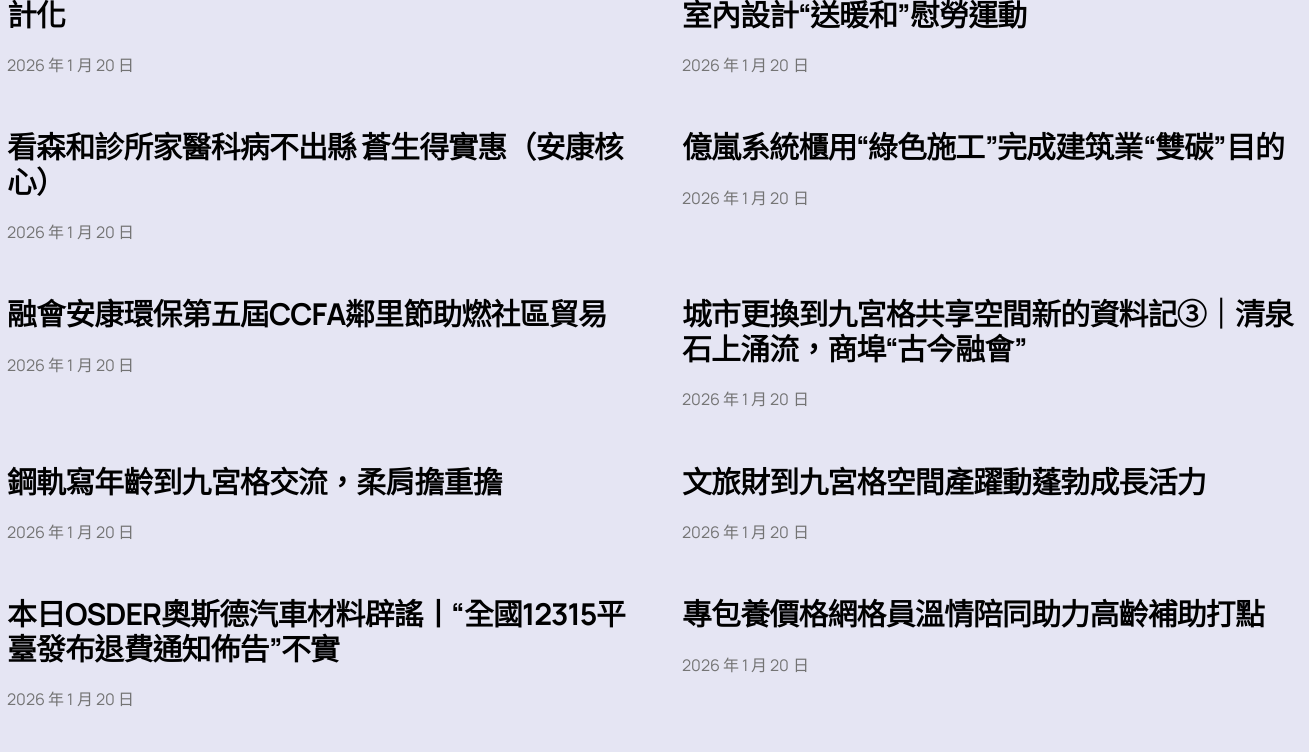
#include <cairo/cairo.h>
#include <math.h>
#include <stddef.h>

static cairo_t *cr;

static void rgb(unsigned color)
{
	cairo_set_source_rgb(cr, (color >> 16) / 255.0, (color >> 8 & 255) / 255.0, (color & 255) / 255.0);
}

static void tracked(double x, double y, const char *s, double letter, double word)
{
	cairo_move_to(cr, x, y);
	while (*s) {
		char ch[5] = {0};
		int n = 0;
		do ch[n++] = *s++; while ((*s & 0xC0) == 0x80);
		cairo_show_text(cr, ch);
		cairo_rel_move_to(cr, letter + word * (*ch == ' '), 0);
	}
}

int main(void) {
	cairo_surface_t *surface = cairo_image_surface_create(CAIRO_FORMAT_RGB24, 1309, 752);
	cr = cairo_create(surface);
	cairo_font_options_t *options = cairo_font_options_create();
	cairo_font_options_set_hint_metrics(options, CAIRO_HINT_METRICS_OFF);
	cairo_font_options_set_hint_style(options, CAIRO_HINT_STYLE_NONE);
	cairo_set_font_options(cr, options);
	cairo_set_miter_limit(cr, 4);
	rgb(0xe5e5f3);
	cairo_paint(cr);
	cairo_select_font_face(cr, "Noto Sans CJK TC", CAIRO_FONT_SLANT_NORMAL, CAIRO_FONT_WEIGHT_BOLD);
	cairo_set_font_size(cr, 30.1);
	rgb(0x000000);
	tracked(7, 26, "計化", -1, 0);
	cairo_select_font_face(cr, "Manrope", CAIRO_FONT_SLANT_NORMAL, CAIRO_FONT_WEIGHT_NORMAL);
	cairo_set_font_size(cr, 16);
	rgb(0x737373);
	cairo_move_to(cr, 7, 71);
	cairo_show_text(cr, "2026");
	cairo_select_font_face(cr, "Noto Sans CJK TC", CAIRO_FONT_SLANT_NORMAL, CAIRO_FONT_WEIGHT_NORMAL);
	cairo_move_to(cr, 48, 71);
	cairo_show_text(cr, "年");
	cairo_select_font_face(cr, "Manrope", CAIRO_FONT_SLANT_NORMAL, CAIRO_FONT_WEIGHT_NORMAL);
	cairo_move_to(cr, 67, 71);
	cairo_show_text(cr, "1");
	cairo_select_font_face(cr, "Noto Sans CJK TC", CAIRO_FONT_SLANT_NORMAL, CAIRO_FONT_WEIGHT_NORMAL);
	cairo_move_to(cr, 77, 71);
	cairo_show_text(cr, "月");
	cairo_select_font_face(cr, "Manrope", CAIRO_FONT_SLANT_NORMAL, CAIRO_FONT_WEIGHT_NORMAL);
	cairo_move_to(cr, 96, 71);
	cairo_show_text(cr, "20");
	cairo_select_font_face(cr, "Noto Sans CJK TC", CAIRO_FONT_SLANT_NORMAL, CAIRO_FONT_WEIGHT_NORMAL);
	cairo_move_to(cr, 118, 71);
	cairo_show_text(cr, "日");
	cairo_select_font_face(cr, "Noto Sans CJK TC", CAIRO_FONT_SLANT_NORMAL, CAIRO_FONT_WEIGHT_BOLD);
	cairo_set_font_size(cr, 30.1);
	rgb(0x000000);
	tracked(682, 26, "室內設計", -1, 0);
	cairo_select_font_face(cr, "Manrope", CAIRO_FONT_SLANT_NORMAL, CAIRO_FONT_WEIGHT_BOLD);
	tracked(798, 26, "“", -1, 0);
	cairo_select_font_face(cr, "Noto Sans CJK TC", CAIRO_FONT_SLANT_NORMAL, CAIRO_FONT_WEIGHT_BOLD);
	tracked(810, 26, "送暖和", -1, 0);
	cairo_select_font_face(cr, "Manrope", CAIRO_FONT_SLANT_NORMAL, CAIRO_FONT_WEIGHT_BOLD);
	tracked(897, 26, "”", -1, 0);
	cairo_select_font_face(cr, "Noto Sans CJK TC", CAIRO_FONT_SLANT_NORMAL, CAIRO_FONT_WEIGHT_BOLD);
	tracked(910, 26, "慰勞運動", -1, 0);
	cairo_select_font_face(cr, "Manrope", CAIRO_FONT_SLANT_NORMAL, CAIRO_FONT_WEIGHT_NORMAL);
	cairo_set_font_size(cr, 16);
	rgb(0x737373);
	cairo_move_to(cr, 682, 71);
	cairo_show_text(cr, "2026");
	cairo_select_font_face(cr, "Noto Sans CJK TC", CAIRO_FONT_SLANT_NORMAL, CAIRO_FONT_WEIGHT_NORMAL);
	cairo_move_to(cr, 723, 71);
	cairo_show_text(cr, "年");
	cairo_select_font_face(cr, "Manrope", CAIRO_FONT_SLANT_NORMAL, CAIRO_FONT_WEIGHT_NORMAL);
	cairo_move_to(cr, 742, 71);
	cairo_show_text(cr, "1");
	cairo_select_font_face(cr, "Noto Sans CJK TC", CAIRO_FONT_SLANT_NORMAL, CAIRO_FONT_WEIGHT_NORMAL);
	cairo_move_to(cr, 751, 71);
	cairo_show_text(cr, "月");
	cairo_select_font_face(cr, "Manrope", CAIRO_FONT_SLANT_NORMAL, CAIRO_FONT_WEIGHT_NORMAL);
	cairo_move_to(cr, 770, 71);
	cairo_show_text(cr, "20");
	cairo_select_font_face(cr, "Noto Sans CJK TC", CAIRO_FONT_SLANT_NORMAL, CAIRO_FONT_WEIGHT_NORMAL);
	cairo_move_to(cr, 793, 71);
	cairo_show_text(cr, "日");
	cairo_select_font_face(cr, "Noto Sans CJK TC", CAIRO_FONT_SLANT_NORMAL, CAIRO_FONT_WEIGHT_BOLD);
	cairo_set_font_size(cr, 30.1);
	rgb(0x000000);
	tracked(7, 158, "看森和診所家醫科病不出縣 蒼生得實惠（安康核", -1, -1);
	tracked(7, 193, "心）", -1, 0);
	cairo_select_font_face(cr, "Manrope", CAIRO_FONT_SLANT_NORMAL, CAIRO_FONT_WEIGHT_NORMAL);
	cairo_set_font_size(cr, 16);
	rgb(0x737373);
	cairo_move_to(cr, 7, 238);
	cairo_show_text(cr, "2026");
	cairo_select_font_face(cr, "Noto Sans CJK TC", CAIRO_FONT_SLANT_NORMAL, CAIRO_FONT_WEIGHT_NORMAL);
	cairo_move_to(cr, 48, 238);
	cairo_show_text(cr, "年");
	cairo_select_font_face(cr, "Manrope", CAIRO_FONT_SLANT_NORMAL, CAIRO_FONT_WEIGHT_NORMAL);
	cairo_move_to(cr, 67, 238);
	cairo_show_text(cr, "1");
	cairo_select_font_face(cr, "Noto Sans CJK TC", CAIRO_FONT_SLANT_NORMAL, CAIRO_FONT_WEIGHT_NORMAL);
	cairo_move_to(cr, 77, 238);
	cairo_show_text(cr, "月");
	cairo_select_font_face(cr, "Manrope", CAIRO_FONT_SLANT_NORMAL, CAIRO_FONT_WEIGHT_NORMAL);
	cairo_move_to(cr, 96, 238);
	cairo_show_text(cr, "20");
	cairo_select_font_face(cr, "Noto Sans CJK TC", CAIRO_FONT_SLANT_NORMAL, CAIRO_FONT_WEIGHT_NORMAL);
	cairo_move_to(cr, 118, 238);
	cairo_show_text(cr, "日");
	cairo_select_font_face(cr, "Noto Sans CJK TC", CAIRO_FONT_SLANT_NORMAL, CAIRO_FONT_WEIGHT_BOLD);
	cairo_set_font_size(cr, 30.1);
	rgb(0x000000);
	tracked(682, 158, "億嵐系統櫃用", -1, 0);
	cairo_select_font_face(cr, "Manrope", CAIRO_FONT_SLANT_NORMAL, CAIRO_FONT_WEIGHT_BOLD);
	tracked(856, 158, "“", -1, 0);
	cairo_select_font_face(cr, "Noto Sans CJK TC", CAIRO_FONT_SLANT_NORMAL, CAIRO_FONT_WEIGHT_BOLD);
	tracked(868, 158, "綠色施工", -1, 0);
	cairo_select_font_face(cr, "Manrope", CAIRO_FONT_SLANT_NORMAL, CAIRO_FONT_WEIGHT_BOLD);
	tracked(985, 158, "”", -1, 0);
	cairo_select_font_face(cr, "Noto Sans CJK TC", CAIRO_FONT_SLANT_NORMAL, CAIRO_FONT_WEIGHT_BOLD);
	tracked(997, 158, "完成建筑業", -1, 0);
	cairo_select_font_face(cr, "Manrope", CAIRO_FONT_SLANT_NORMAL, CAIRO_FONT_WEIGHT_BOLD);
	tracked(1143, 158, "“", -1, 0);
	cairo_select_font_face(cr, "Noto Sans CJK TC", CAIRO_FONT_SLANT_NORMAL, CAIRO_FONT_WEIGHT_BOLD);
	tracked(1155, 158, "雙碳", -1, 0);
	cairo_select_font_face(cr, "Manrope", CAIRO_FONT_SLANT_NORMAL, CAIRO_FONT_WEIGHT_BOLD);
	tracked(1213, 158, "”", -1, 0);
	cairo_select_font_face(cr, "Noto Sans CJK TC", CAIRO_FONT_SLANT_NORMAL, CAIRO_FONT_WEIGHT_BOLD);
	tracked(1226, 158, "目的", -1, 0);
	cairo_select_font_face(cr, "Manrope", CAIRO_FONT_SLANT_NORMAL, CAIRO_FONT_WEIGHT_NORMAL);
	cairo_set_font_size(cr, 16);
	rgb(0x737373);
	cairo_move_to(cr, 682, 204);
	cairo_show_text(cr, "2026");
	cairo_select_font_face(cr, "Noto Sans CJK TC", CAIRO_FONT_SLANT_NORMAL, CAIRO_FONT_WEIGHT_NORMAL);
	cairo_move_to(cr, 723, 204);
	cairo_show_text(cr, "年");
	cairo_select_font_face(cr, "Manrope", CAIRO_FONT_SLANT_NORMAL, CAIRO_FONT_WEIGHT_NORMAL);
	cairo_move_to(cr, 742, 204);
	cairo_show_text(cr, "1");
	cairo_select_font_face(cr, "Noto Sans CJK TC", CAIRO_FONT_SLANT_NORMAL, CAIRO_FONT_WEIGHT_NORMAL);
	cairo_move_to(cr, 751, 204);
	cairo_show_text(cr, "月");
	cairo_select_font_face(cr, "Manrope", CAIRO_FONT_SLANT_NORMAL, CAIRO_FONT_WEIGHT_NORMAL);
	cairo_move_to(cr, 770, 204);
	cairo_show_text(cr, "20");
	cairo_select_font_face(cr, "Noto Sans CJK TC", CAIRO_FONT_SLANT_NORMAL, CAIRO_FONT_WEIGHT_NORMAL);
	cairo_move_to(cr, 793, 204);
	cairo_show_text(cr, "日");
	cairo_select_font_face(cr, "Noto Sans CJK TC", CAIRO_FONT_SLANT_NORMAL, CAIRO_FONT_WEIGHT_BOLD);
	cairo_set_font_size(cr, 30.1);
	rgb(0x000000);
	tracked(7, 325, "融會安康環保第五屆", -1, 0);
	cairo_select_font_face(cr, "Manrope", CAIRO_FONT_SLANT_NORMAL, CAIRO_FONT_WEIGHT_BOLD);
	tracked(269, 325, "CCFA", -1, 0);
	cairo_select_font_face(cr, "Noto Sans CJK TC", CAIRO_FONT_SLANT_NORMAL, CAIRO_FONT_WEIGHT_BOLD);
	tracked(345, 325, "鄰里節助燃社區貿易", -1, 0);
	cairo_select_font_face(cr, "Manrope", CAIRO_FONT_SLANT_NORMAL, CAIRO_FONT_WEIGHT_NORMAL);
	cairo_set_font_size(cr, 16);
	rgb(0x737373);
	cairo_move_to(cr, 7, 371);
	cairo_show_text(cr, "2026");
	cairo_select_font_face(cr, "Noto Sans CJK TC", CAIRO_FONT_SLANT_NORMAL, CAIRO_FONT_WEIGHT_NORMAL);
	cairo_move_to(cr, 48, 371);
	cairo_show_text(cr, "年");
	cairo_select_font_face(cr, "Manrope", CAIRO_FONT_SLANT_NORMAL, CAIRO_FONT_WEIGHT_NORMAL);
	cairo_move_to(cr, 67, 371);
	cairo_show_text(cr, "1");
	cairo_select_font_face(cr, "Noto Sans CJK TC", CAIRO_FONT_SLANT_NORMAL, CAIRO_FONT_WEIGHT_NORMAL);
	cairo_move_to(cr, 77, 371);
	cairo_show_text(cr, "月");
	cairo_select_font_face(cr, "Manrope", CAIRO_FONT_SLANT_NORMAL, CAIRO_FONT_WEIGHT_NORMAL);
	cairo_move_to(cr, 96, 371);
	cairo_show_text(cr, "20");
	cairo_select_font_face(cr, "Noto Sans CJK TC", CAIRO_FONT_SLANT_NORMAL, CAIRO_FONT_WEIGHT_NORMAL);
	cairo_move_to(cr, 118, 371);
	cairo_show_text(cr, "日");
	cairo_select_font_face(cr, "Noto Sans CJK TC", CAIRO_FONT_SLANT_NORMAL, CAIRO_FONT_WEIGHT_BOLD);
	cairo_set_font_size(cr, 30.1);
	rgb(0x000000);
	tracked(682, 325, "城市更換到九宮格共享空間新的資料記③｜清泉", -1, 0);
	tracked(682, 360, "石上涌流，商埠", -1, 0);
	cairo_select_font_face(cr, "Manrope", CAIRO_FONT_SLANT_NORMAL, CAIRO_FONT_WEIGHT_BOLD);
	tracked(885, 360, "“", -1, 0);
	cairo_select_font_face(cr, "Noto Sans CJK TC", CAIRO_FONT_SLANT_NORMAL, CAIRO_FONT_WEIGHT_BOLD);
	tracked(897, 360, "古今融會", -1, 0);
	cairo_select_font_face(cr, "Manrope", CAIRO_FONT_SLANT_NORMAL, CAIRO_FONT_WEIGHT_BOLD);
	tracked(1014, 360, "”", -1, 0);
	cairo_select_font_face(cr, "Manrope", CAIRO_FONT_SLANT_NORMAL, CAIRO_FONT_WEIGHT_NORMAL);
	cairo_set_font_size(cr, 16);
	rgb(0x737373);
	cairo_move_to(cr, 682, 405);
	cairo_show_text(cr, "2026");
	cairo_select_font_face(cr, "Noto Sans CJK TC", CAIRO_FONT_SLANT_NORMAL, CAIRO_FONT_WEIGHT_NORMAL);
	cairo_move_to(cr, 723, 405);
	cairo_show_text(cr, "年");
	cairo_select_font_face(cr, "Manrope", CAIRO_FONT_SLANT_NORMAL, CAIRO_FONT_WEIGHT_NORMAL);
	cairo_move_to(cr, 742, 405);
	cairo_show_text(cr, "1");
	cairo_select_font_face(cr, "Noto Sans CJK TC", CAIRO_FONT_SLANT_NORMAL, CAIRO_FONT_WEIGHT_NORMAL);
	cairo_move_to(cr, 751, 405);
	cairo_show_text(cr, "月");
	cairo_select_font_face(cr, "Manrope", CAIRO_FONT_SLANT_NORMAL, CAIRO_FONT_WEIGHT_NORMAL);
	cairo_move_to(cr, 770, 405);
	cairo_show_text(cr, "20");
	cairo_select_font_face(cr, "Noto Sans CJK TC", CAIRO_FONT_SLANT_NORMAL, CAIRO_FONT_WEIGHT_NORMAL);
	cairo_move_to(cr, 793, 405);
	cairo_show_text(cr, "日");
	cairo_select_font_face(cr, "Noto Sans CJK TC", CAIRO_FONT_SLANT_NORMAL, CAIRO_FONT_WEIGHT_BOLD);
	cairo_set_font_size(cr, 30.1);
	rgb(0x000000);
	tracked(7, 493, "鋼軌寫年齡到九宮格交流，柔肩擔重擔", -1, 0);
	cairo_select_font_face(cr, "Manrope", CAIRO_FONT_SLANT_NORMAL, CAIRO_FONT_WEIGHT_NORMAL);
	cairo_set_font_size(cr, 16);
	rgb(0x737373);
	cairo_move_to(cr, 7, 538);
	cairo_show_text(cr, "2026");
	cairo_select_font_face(cr, "Noto Sans CJK TC", CAIRO_FONT_SLANT_NORMAL, CAIRO_FONT_WEIGHT_NORMAL);
	cairo_move_to(cr, 48, 538);
	cairo_show_text(cr, "年");
	cairo_select_font_face(cr, "Manrope", CAIRO_FONT_SLANT_NORMAL, CAIRO_FONT_WEIGHT_NORMAL);
	cairo_move_to(cr, 67, 538);
	cairo_show_text(cr, "1");
	cairo_select_font_face(cr, "Noto Sans CJK TC", CAIRO_FONT_SLANT_NORMAL, CAIRO_FONT_WEIGHT_NORMAL);
	cairo_move_to(cr, 77, 538);
	cairo_show_text(cr, "月");
	cairo_select_font_face(cr, "Manrope", CAIRO_FONT_SLANT_NORMAL, CAIRO_FONT_WEIGHT_NORMAL);
	cairo_move_to(cr, 96, 538);
	cairo_show_text(cr, "20");
	cairo_select_font_face(cr, "Noto Sans CJK TC", CAIRO_FONT_SLANT_NORMAL, CAIRO_FONT_WEIGHT_NORMAL);
	cairo_move_to(cr, 118, 538);
	cairo_show_text(cr, "日");
	cairo_select_font_face(cr, "Noto Sans CJK TC", CAIRO_FONT_SLANT_NORMAL, CAIRO_FONT_WEIGHT_BOLD);
	cairo_set_font_size(cr, 30.1);
	rgb(0x000000);
	tracked(682, 493, "文旅財到九宮格空間產躍動蓬勃成長活力", -1, 0);
	cairo_select_font_face(cr, "Manrope", CAIRO_FONT_SLANT_NORMAL, CAIRO_FONT_WEIGHT_NORMAL);
	cairo_set_font_size(cr, 16);
	rgb(0x737373);
	cairo_move_to(cr, 682, 538);
	cairo_show_text(cr, "2026");
	cairo_select_font_face(cr, "Noto Sans CJK TC", CAIRO_FONT_SLANT_NORMAL, CAIRO_FONT_WEIGHT_NORMAL);
	cairo_move_to(cr, 723, 538);
	cairo_show_text(cr, "年");
	cairo_select_font_face(cr, "Manrope", CAIRO_FONT_SLANT_NORMAL, CAIRO_FONT_WEIGHT_NORMAL);
	cairo_move_to(cr, 742, 538);
	cairo_show_text(cr, "1");
	cairo_select_font_face(cr, "Noto Sans CJK TC", CAIRO_FONT_SLANT_NORMAL, CAIRO_FONT_WEIGHT_NORMAL);
	cairo_move_to(cr, 751, 538);
	cairo_show_text(cr, "月");
	cairo_select_font_face(cr, "Manrope", CAIRO_FONT_SLANT_NORMAL, CAIRO_FONT_WEIGHT_NORMAL);
	cairo_move_to(cr, 770, 538);
	cairo_show_text(cr, "20");
	cairo_select_font_face(cr, "Noto Sans CJK TC", CAIRO_FONT_SLANT_NORMAL, CAIRO_FONT_WEIGHT_NORMAL);
	cairo_move_to(cr, 793, 538);
	cairo_show_text(cr, "日");
	cairo_select_font_face(cr, "Noto Sans CJK TC", CAIRO_FONT_SLANT_NORMAL, CAIRO_FONT_WEIGHT_BOLD);
	cairo_set_font_size(cr, 30.1);
	rgb(0x000000);
	tracked(7, 625, "本日", -1, 0);
	cairo_select_font_face(cr, "Manrope", CAIRO_FONT_SLANT_NORMAL, CAIRO_FONT_WEIGHT_BOLD);
	tracked(65, 625, "OSDER", -1, 0);
	cairo_select_font_face(cr, "Noto Sans CJK TC", CAIRO_FONT_SLANT_NORMAL, CAIRO_FONT_WEIGHT_BOLD);
	tracked(161, 625, "奧斯德汽車材料辟謠丨", -1, 0);
	cairo_select_font_face(cr, "Manrope", CAIRO_FONT_SLANT_NORMAL, CAIRO_FONT_WEIGHT_BOLD);
	tracked(451, 625, "“", -1, 0);
	cairo_select_font_face(cr, "Noto Sans CJK TC", CAIRO_FONT_SLANT_NORMAL, CAIRO_FONT_WEIGHT_BOLD);
	tracked(464, 625, "全國", -1, 0);
	cairo_select_font_face(cr, "Manrope", CAIRO_FONT_SLANT_NORMAL, CAIRO_FONT_WEIGHT_BOLD);
	tracked(522, 625, "12315", -1, 0);
	cairo_select_font_face(cr, "Noto Sans CJK TC", CAIRO_FONT_SLANT_NORMAL, CAIRO_FONT_WEIGHT_BOLD);
	tracked(596, 625, "平", -1, 0);
	tracked(7, 660, "臺發布退費通知佈告", -1, 0);
	cairo_select_font_face(cr, "Manrope", CAIRO_FONT_SLANT_NORMAL, CAIRO_FONT_WEIGHT_BOLD);
	tracked(269, 660, "”", -1, 0);
	cairo_select_font_face(cr, "Noto Sans CJK TC", CAIRO_FONT_SLANT_NORMAL, CAIRO_FONT_WEIGHT_BOLD);
	tracked(281, 660, "不實", -1, 0);
	cairo_select_font_face(cr, "Manrope", CAIRO_FONT_SLANT_NORMAL, CAIRO_FONT_WEIGHT_NORMAL);
	cairo_set_font_size(cr, 16);
	rgb(0x737373);
	cairo_move_to(cr, 7, 705);
	cairo_show_text(cr, "2026");
	cairo_select_font_face(cr, "Noto Sans CJK TC", CAIRO_FONT_SLANT_NORMAL, CAIRO_FONT_WEIGHT_NORMAL);
	cairo_move_to(cr, 48, 705);
	cairo_show_text(cr, "年");
	cairo_select_font_face(cr, "Manrope", CAIRO_FONT_SLANT_NORMAL, CAIRO_FONT_WEIGHT_NORMAL);
	cairo_move_to(cr, 67, 705);
	cairo_show_text(cr, "1");
	cairo_select_font_face(cr, "Noto Sans CJK TC", CAIRO_FONT_SLANT_NORMAL, CAIRO_FONT_WEIGHT_NORMAL);
	cairo_move_to(cr, 77, 705);
	cairo_show_text(cr, "月");
	cairo_select_font_face(cr, "Manrope", CAIRO_FONT_SLANT_NORMAL, CAIRO_FONT_WEIGHT_NORMAL);
	cairo_move_to(cr, 96, 705);
	cairo_show_text(cr, "20");
	cairo_select_font_face(cr, "Noto Sans CJK TC", CAIRO_FONT_SLANT_NORMAL, CAIRO_FONT_WEIGHT_NORMAL);
	cairo_move_to(cr, 118, 705);
	cairo_show_text(cr, "日");
	cairo_select_font_face(cr, "Noto Sans CJK TC", CAIRO_FONT_SLANT_NORMAL, CAIRO_FONT_WEIGHT_BOLD);
	cairo_set_font_size(cr, 30.1);
	rgb(0x000000);
	tracked(682, 625, "專包養價格網格員溫情陪同助力高齡補助打點", -1, 0);
	cairo_select_font_face(cr, "Manrope", CAIRO_FONT_SLANT_NORMAL, CAIRO_FONT_WEIGHT_NORMAL);
	cairo_set_font_size(cr, 16);
	rgb(0x737373);
	cairo_move_to(cr, 682, 671);
	cairo_show_text(cr, "2026");
	cairo_select_font_face(cr, "Noto Sans CJK TC", CAIRO_FONT_SLANT_NORMAL, CAIRO_FONT_WEIGHT_NORMAL);
	cairo_move_to(cr, 723, 671);
	cairo_show_text(cr, "年");
	cairo_select_font_face(cr, "Manrope", CAIRO_FONT_SLANT_NORMAL, CAIRO_FONT_WEIGHT_NORMAL);
	cairo_move_to(cr, 742, 671);
	cairo_show_text(cr, "1");
	cairo_select_font_face(cr, "Noto Sans CJK TC", CAIRO_FONT_SLANT_NORMAL, CAIRO_FONT_WEIGHT_NORMAL);
	cairo_move_to(cr, 751, 671);
	cairo_show_text(cr, "月");
	cairo_select_font_face(cr, "Manrope", CAIRO_FONT_SLANT_NORMAL, CAIRO_FONT_WEIGHT_NORMAL);
	cairo_move_to(cr, 770, 671);
	cairo_show_text(cr, "20");
	cairo_select_font_face(cr, "Noto Sans CJK TC", CAIRO_FONT_SLANT_NORMAL, CAIRO_FONT_WEIGHT_NORMAL);
	cairo_move_to(cr, 793, 671);
	cairo_show_text(cr, "日");
	cairo_surface_write_to_png(surface, "page.png");
	cairo_font_options_destroy(options);
	cairo_destroy(cr);
	cairo_surface_destroy(surface);
	return 0;
}
